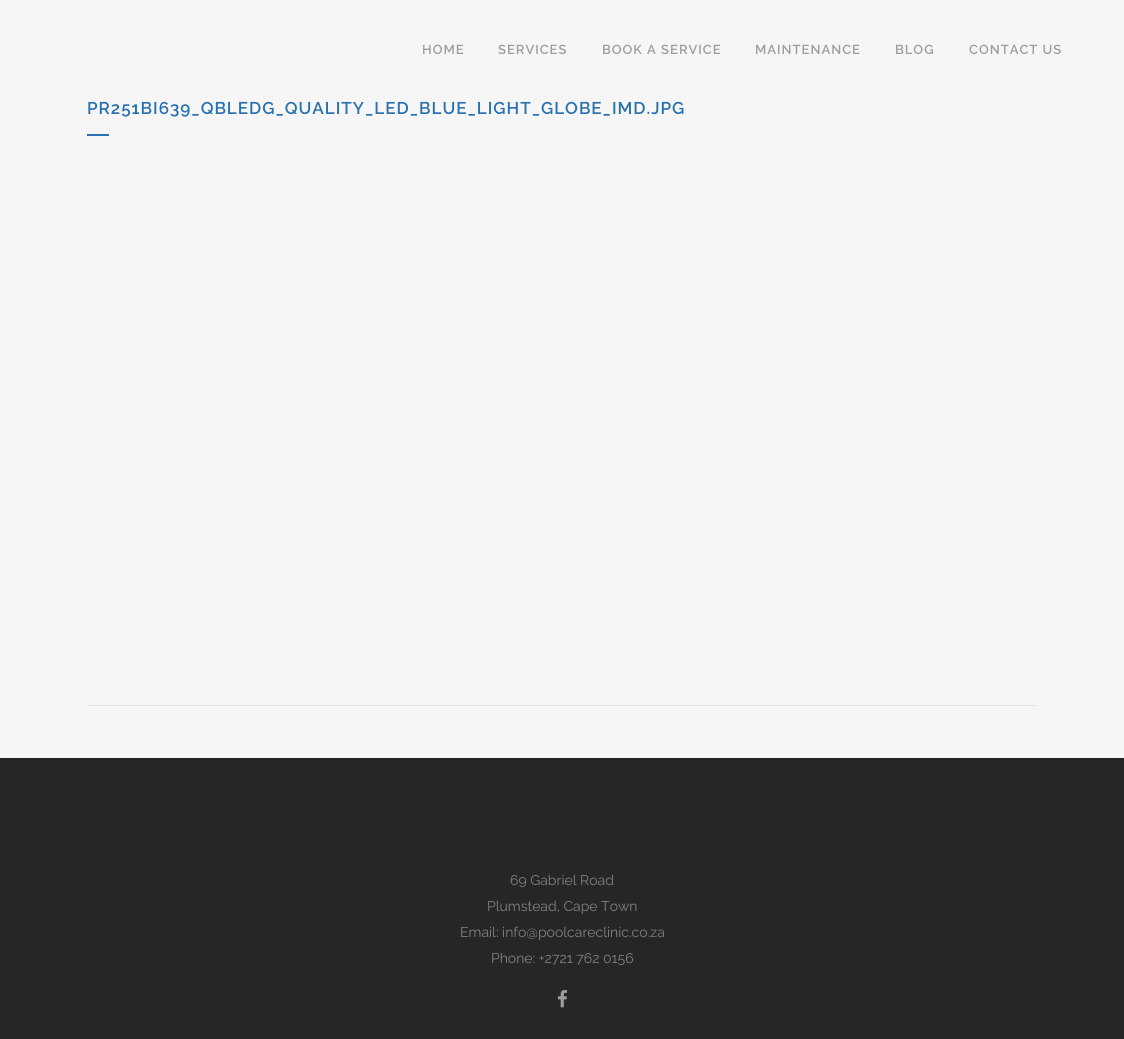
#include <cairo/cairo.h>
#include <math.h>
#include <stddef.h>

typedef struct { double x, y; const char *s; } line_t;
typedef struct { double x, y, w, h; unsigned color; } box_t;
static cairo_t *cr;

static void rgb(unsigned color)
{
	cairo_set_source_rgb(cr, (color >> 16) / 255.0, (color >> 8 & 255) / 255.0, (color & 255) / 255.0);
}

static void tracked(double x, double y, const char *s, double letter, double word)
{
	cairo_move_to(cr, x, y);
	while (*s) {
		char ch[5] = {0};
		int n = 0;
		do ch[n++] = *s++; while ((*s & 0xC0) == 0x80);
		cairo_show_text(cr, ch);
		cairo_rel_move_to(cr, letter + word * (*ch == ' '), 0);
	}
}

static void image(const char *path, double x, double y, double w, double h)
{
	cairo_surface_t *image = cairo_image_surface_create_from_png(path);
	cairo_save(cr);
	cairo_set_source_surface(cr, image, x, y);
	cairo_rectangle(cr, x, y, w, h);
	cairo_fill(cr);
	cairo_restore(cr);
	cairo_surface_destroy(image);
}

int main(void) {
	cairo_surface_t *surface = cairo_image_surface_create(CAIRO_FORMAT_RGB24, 1124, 1039);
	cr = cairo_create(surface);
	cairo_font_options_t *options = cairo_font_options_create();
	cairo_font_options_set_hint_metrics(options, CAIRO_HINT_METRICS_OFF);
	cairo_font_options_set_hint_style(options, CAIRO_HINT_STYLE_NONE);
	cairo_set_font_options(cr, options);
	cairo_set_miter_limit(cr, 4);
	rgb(0xf6f6f6);
	cairo_paint(cr);
	{
		static const box_t items[] = {
			{87, 134, 22, 2, 0x2870af},
			{87, 705, 950, 1, 0xe5e5e5},
			{0, 758, 1124, 281, 0x262626},
		};
		for (size_t i = 0; i < sizeof items / sizeof *items; i++) {
			rgb(items[i].color);
			cairo_rectangle(cr, items[i].x, items[i].y, items[i].w, items[i].h);
			cairo_fill(cr);
		}
	}
	image("img/1.png", 558, 990, 9, 18);
	cairo_select_font_face(cr, "Raleway SemiBold", CAIRO_FONT_SLANT_NORMAL, CAIRO_FONT_WEIGHT_NORMAL);
	cairo_set_font_size(cr, 13);
	rgb(0x9d9d9d);
	{
		static const line_t items[] = {
			{422, 54, "HOME"},
			{498, 54, "SERVICES"},
			{602, 54, "BOOK A SERVICE"},
			{755, 54, "MAINTENANCE"},
			{895, 54, "BLOG"},
			{969, 54, "CONTACT US"},
		};
		for (size_t i = 0; i < sizeof items / sizeof *items; i++) {
			tracked(items[i].x, items[i].y, items[i].s, 1, 0);
		}
	}
	cairo_set_font_size(cr, 17);
	rgb(0x2870af);
	tracked(87, 114, "PR251BI639_QBLEDG_QUALITY_LED_BLUE_LIGHT_GLOBE_IMD.JPG", 1, 0);
	cairo_select_font_face(cr, "Raleway", CAIRO_FONT_SLANT_NORMAL, CAIRO_FONT_WEIGHT_NORMAL);
	cairo_set_font_size(cr, 14);
	rgb(0x818181);
	{
		static const line_t items[] = {
			{510, 885, "69 Gabriel Road"},
			{487, 911, "Plumstead, Cape Town"},
			{460, 937, "Email: info@poolcareclinic.co.za"},
			{491, 963, "Phone: +2721 762 0156"},
		};
		for (size_t i = 0; i < sizeof items / sizeof *items; i++) {
			cairo_move_to(cr, items[i].x, items[i].y);
			cairo_show_text(cr, items[i].s);
		}
	}
	cairo_surface_write_to_png(surface, "page.png");
	cairo_font_options_destroy(options);
	cairo_destroy(cr);
	cairo_surface_destroy(surface);
	return 0;
}
